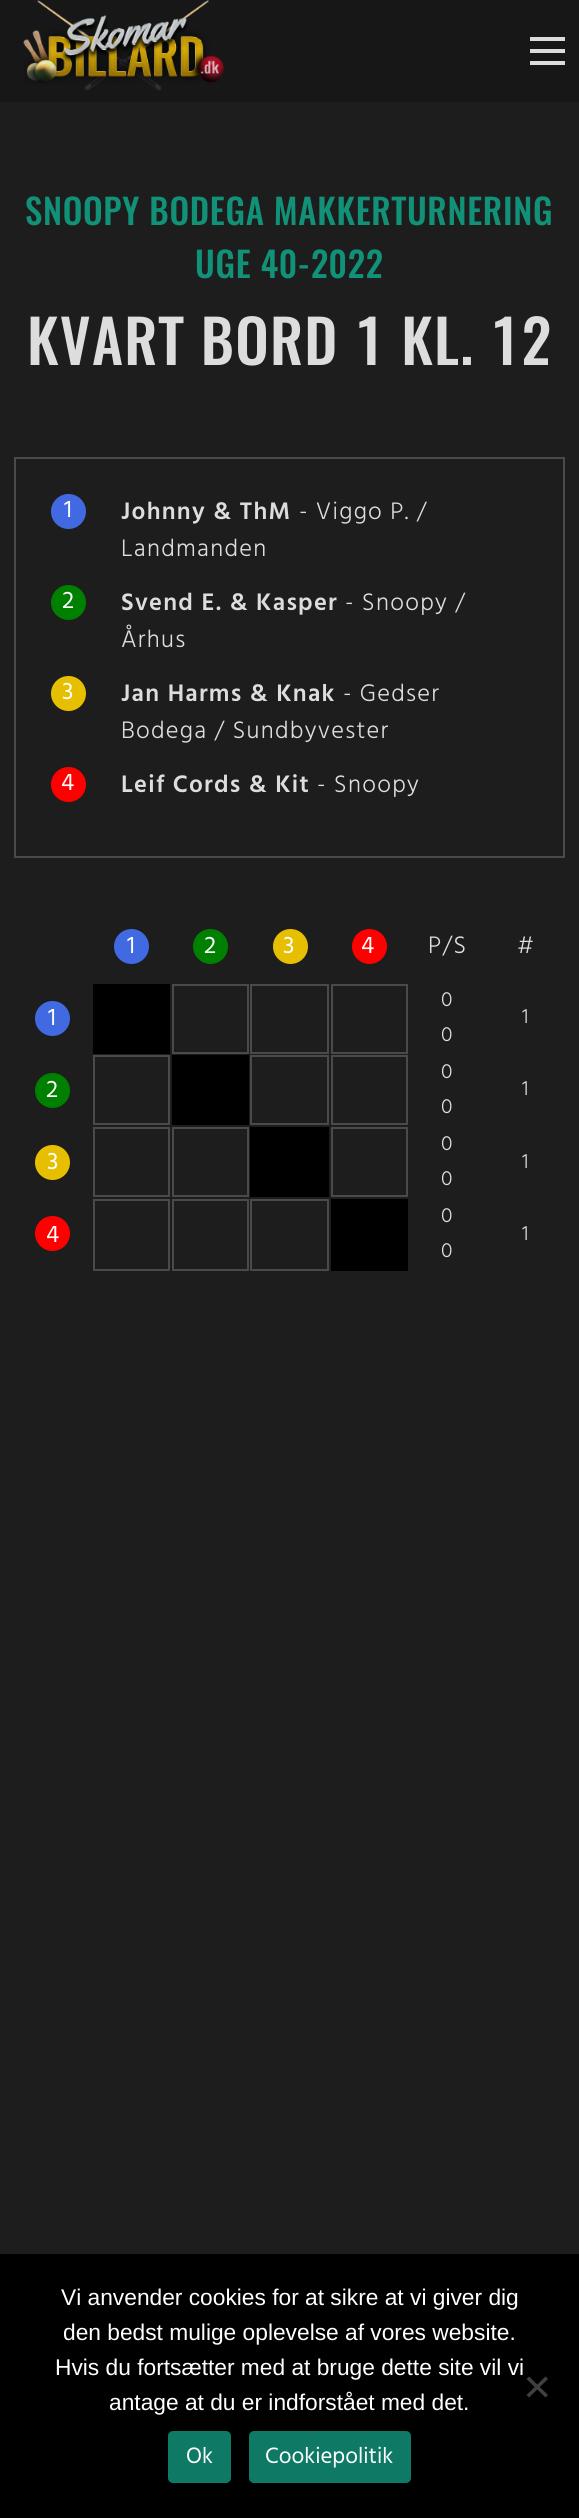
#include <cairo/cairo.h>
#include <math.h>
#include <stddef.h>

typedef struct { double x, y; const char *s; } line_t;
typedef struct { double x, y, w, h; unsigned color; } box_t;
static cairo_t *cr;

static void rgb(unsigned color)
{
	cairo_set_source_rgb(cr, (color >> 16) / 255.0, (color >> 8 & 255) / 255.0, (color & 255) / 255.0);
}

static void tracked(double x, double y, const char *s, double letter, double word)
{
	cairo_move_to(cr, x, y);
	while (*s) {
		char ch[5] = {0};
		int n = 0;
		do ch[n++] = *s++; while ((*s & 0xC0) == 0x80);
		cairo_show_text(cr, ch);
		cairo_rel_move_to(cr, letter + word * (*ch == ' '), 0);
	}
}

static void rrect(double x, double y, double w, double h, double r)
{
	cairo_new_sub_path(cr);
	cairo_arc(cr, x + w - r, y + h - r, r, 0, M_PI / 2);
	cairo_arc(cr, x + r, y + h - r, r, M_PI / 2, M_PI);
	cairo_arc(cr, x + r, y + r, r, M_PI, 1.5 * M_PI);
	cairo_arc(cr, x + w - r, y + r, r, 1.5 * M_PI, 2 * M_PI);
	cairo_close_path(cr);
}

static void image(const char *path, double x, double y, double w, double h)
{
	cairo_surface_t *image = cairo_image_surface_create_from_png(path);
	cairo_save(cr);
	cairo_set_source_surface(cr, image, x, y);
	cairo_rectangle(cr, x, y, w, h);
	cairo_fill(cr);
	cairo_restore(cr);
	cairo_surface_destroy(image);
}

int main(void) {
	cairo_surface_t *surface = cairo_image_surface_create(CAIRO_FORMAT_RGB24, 579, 2518);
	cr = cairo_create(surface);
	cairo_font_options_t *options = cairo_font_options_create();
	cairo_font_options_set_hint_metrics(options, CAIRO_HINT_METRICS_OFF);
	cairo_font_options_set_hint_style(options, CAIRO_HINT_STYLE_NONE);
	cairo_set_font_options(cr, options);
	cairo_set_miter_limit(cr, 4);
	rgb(0x1d1d1d);
	cairo_paint(cr);
	rgb(0x171717);
	cairo_rectangle(cr, 0, 0, 579, 102);
	cairo_fill(cr);
	image("img/1.png", 23, 0, 201, 91);
	{
		static const box_t items[] = {
			{530, 37, 35, 4, 0xdcdcdc},
			{530, 49, 35, 4, 0xdcdcdc},
			{530, 61, 35, 4, 0xdcdcdc},
		};
		for (size_t i = 0; i < sizeof items / sizeof *items; i++) {
			rgb(items[i].color);
			cairo_rectangle(cr, items[i].x, items[i].y, items[i].w, items[i].h);
			cairo_fill(cr);
		}
	}
	cairo_rectangle(cr, 15, 458, 549, 399);
	rgb(0x4a4a4a);
	cairo_stroke(cr);
	rgb(0x4169e1);
	cairo_arc(cr, 68.5, 511.5, 17.5, 0, 2 * M_PI);
	cairo_fill(cr);
	rgb(0x008000);
	cairo_arc(cr, 68.5, 602.5, 17.5, 0, 2 * M_PI);
	cairo_fill(cr);
	rgb(0xe6bf00);
	cairo_arc(cr, 68.5, 693.5, 17.5, 0, 2 * M_PI);
	cairo_fill(cr);
	rgb(0xff0000);
	cairo_arc(cr, 68.5, 784.5, 17.5, 0, 2 * M_PI);
	cairo_fill(cr);
	rgb(0x4169e1);
	cairo_arc(cr, 131.5, 946.5, 17.5, 0, 2 * M_PI);
	cairo_fill(cr);
	rgb(0x008000);
	cairo_arc(cr, 210.5, 946.5, 17.5, 0, 2 * M_PI);
	cairo_fill(cr);
	rgb(0xe6bf00);
	cairo_arc(cr, 290.5, 946.5, 17.5, 0, 2 * M_PI);
	cairo_fill(cr);
	rgb(0xff0000);
	cairo_arc(cr, 369.5, 946.5, 17.5, 0, 2 * M_PI);
	cairo_fill(cr);
	rgb(0x4169e1);
	cairo_arc(cr, 52.5, 1018.5, 17.5, 0, 2 * M_PI);
	cairo_fill(cr);
	rgb(0x000000);
	cairo_rectangle(cr, 93, 984, 77, 70);
	cairo_fill(cr);
	cairo_rectangle(cr, 173, 985, 75, 68);
	rgb(0x4a4a4a);
	cairo_stroke(cr);
	cairo_rectangle(cr, 251, 985, 77, 68);
	cairo_stroke(cr);
	cairo_rectangle(cr, 332, 985, 75, 68);
	cairo_stroke(cr);
	rgb(0x008000);
	cairo_arc(cr, 52.5, 1090.5, 17.5, 0, 2 * M_PI);
	cairo_fill(cr);
	cairo_rectangle(cr, 94, 1056, 75, 68);
	rgb(0x4a4a4a);
	cairo_stroke(cr);
	rgb(0x000000);
	cairo_rectangle(cr, 172, 1055, 77, 70);
	cairo_fill(cr);
	cairo_rectangle(cr, 251, 1056, 77, 68);
	rgb(0x4a4a4a);
	cairo_stroke(cr);
	cairo_rectangle(cr, 332, 1056, 75, 68);
	cairo_stroke(cr);
	rgb(0xe6bf00);
	cairo_arc(cr, 52.5, 1162.5, 17.5, 0, 2 * M_PI);
	cairo_fill(cr);
	cairo_rectangle(cr, 94, 1128, 75, 68);
	rgb(0x4a4a4a);
	cairo_stroke(cr);
	cairo_rectangle(cr, 173, 1128, 75, 68);
	cairo_stroke(cr);
	rgb(0x000000);
	cairo_rectangle(cr, 250, 1127, 79, 70);
	cairo_fill(cr);
	cairo_rectangle(cr, 332, 1128, 75, 68);
	rgb(0x4a4a4a);
	cairo_stroke(cr);
	rgb(0xff0000);
	cairo_arc(cr, 52.5, 1233.5, 17.5, 0, 2 * M_PI);
	cairo_fill(cr);
	cairo_rectangle(cr, 94, 1200, 75, 70);
	rgb(0x4a4a4a);
	cairo_stroke(cr);
	cairo_rectangle(cr, 173, 1200, 75, 70);
	cairo_stroke(cr);
	cairo_rectangle(cr, 251, 1200, 77, 70);
	cairo_stroke(cr);
	rgb(0x000000);
	cairo_rectangle(cr, 331, 1199, 77, 72);
	cairo_fill(cr);
	cairo_rectangle(cr, 0, 2254, 579, 264);
	cairo_fill(cr);
	rgb(0x404040);
	cairo_new_path(cr);
	cairo_move_to(cr, 545.5, 2376.5);
	cairo_line_to(cr, 548, 2379);
	cairo_line_to(cr, 529, 2397.5);
	cairo_line_to(cr, 526.5, 2395);
	cairo_close_path(cr);
	cairo_fill(cr);
	cairo_new_path(cr);
	cairo_move_to(cr, 526.5, 2379);
	cairo_line_to(cr, 529, 2376.5);
	cairo_line_to(cr, 548, 2395);
	cairo_line_to(cr, 545.5, 2397.5);
	cairo_close_path(cr);
	cairo_fill(cr);
	rgb(0x0e7a65);
	rrect(168, 2431, 63, 52, 5);
	cairo_fill(cr);
	rrect(249, 2431, 162, 52, 5);
	cairo_fill(cr);
	cairo_select_font_face(cr, "Oswald Medium", CAIRO_FONT_SLANT_NORMAL, CAIRO_FONT_WEIGHT_NORMAL);
	cairo_set_font_size(cr, 35);
	rgb(0x119178);
	tracked(25, 225, "SNOOPY BODEGA MAKKERTURNERING", 0.7, 0);
	tracked(195, 278, "UGE 40-2022", 0.7, 0);
	cairo_set_font_size(cr, 59.75);
	rgb(0xdddddd);
	tracked(27, 365, "KVART BORD 1 KL. 12", 1.2, 0);
	cairo_select_font_face(cr, "Hind", CAIRO_FONT_SLANT_NORMAL, CAIRO_FONT_WEIGHT_NORMAL);
	cairo_set_font_size(cr, 24.5);
	rgb(0xffffff);
	tracked(64, 517, "1", 1.25, 0);
	cairo_select_font_face(cr, "Hind SemiBold", CAIRO_FONT_SLANT_NORMAL, CAIRO_FONT_WEIGHT_NORMAL);
	rgb(0xdddddd);
	tracked(121, 519, "Johnny & ThM", 1.25, 0);
	cairo_select_font_face(cr, "Hind Light", CAIRO_FONT_SLANT_NORMAL, CAIRO_FONT_WEIGHT_NORMAL);
	tracked(299, 519, "- Viggo P. /", 1.25, 0);
	tracked(121, 556, "Landmanden", 1.25, 0);
	cairo_select_font_face(cr, "Hind", CAIRO_FONT_SLANT_NORMAL, CAIRO_FONT_WEIGHT_NORMAL);
	rgb(0xffffff);
	tracked(62, 608, "2", 1.25, 0);
	cairo_select_font_face(cr, "Hind SemiBold", CAIRO_FONT_SLANT_NORMAL, CAIRO_FONT_WEIGHT_NORMAL);
	rgb(0xdddddd);
	tracked(121, 610, "Svend E. & Kasper", 1.25, 0);
	cairo_select_font_face(cr, "Hind Light", CAIRO_FONT_SLANT_NORMAL, CAIRO_FONT_WEIGHT_NORMAL);
	tracked(345, 610, "- Snoopy /", 1.25, 0);
	tracked(121, 647, "Århus", 1.25, 0);
	cairo_select_font_face(cr, "Hind", CAIRO_FONT_SLANT_NORMAL, CAIRO_FONT_WEIGHT_NORMAL);
	rgb(0xffffff);
	tracked(62, 699, "3", 1.25, 0);
	cairo_select_font_face(cr, "Hind SemiBold", CAIRO_FONT_SLANT_NORMAL, CAIRO_FONT_WEIGHT_NORMAL);
	rgb(0xdddddd);
	tracked(121, 701, "Jan Harms & Knak", 1.25, 0);
	cairo_select_font_face(cr, "Hind Light", CAIRO_FONT_SLANT_NORMAL, CAIRO_FONT_WEIGHT_NORMAL);
	tracked(343, 701, "- Gedser", 1.25, 0);
	tracked(121, 738, "Bodega / Sundbyvester", 1.25, 0);
	cairo_select_font_face(cr, "Hind", CAIRO_FONT_SLANT_NORMAL, CAIRO_FONT_WEIGHT_NORMAL);
	rgb(0xffffff);
	tracked(61, 790, "4", 1.25, 0);
	cairo_select_font_face(cr, "Hind SemiBold", CAIRO_FONT_SLANT_NORMAL, CAIRO_FONT_WEIGHT_NORMAL);
	rgb(0xdddddd);
	tracked(121, 792, "Leif Cords & Kit", 1.25, 0);
	cairo_select_font_face(cr, "Hind Light", CAIRO_FONT_SLANT_NORMAL, CAIRO_FONT_WEIGHT_NORMAL);
	tracked(317, 792, "- Snoopy", 1.25, 0);
	cairo_select_font_face(cr, "Hind", CAIRO_FONT_SLANT_NORMAL, CAIRO_FONT_WEIGHT_NORMAL);
	rgb(0xffffff);
	{
		static const line_t items[] = {
			{127, 953, "1"},
			{204, 953, "2"},
			{283, 953, "3"},
			{361, 953, "4"},
		};
		for (size_t i = 0; i < sizeof items / sizeof *items; i++) {
			tracked(items[i].x, items[i].y, items[i].s, 1.25, 0);
		}
	}
	cairo_select_font_face(cr, "Hind Light", CAIRO_FONT_SLANT_NORMAL, CAIRO_FONT_WEIGHT_NORMAL);
	rgb(0xdddddd);
	tracked(428, 953, "P/S", 1.25, 0);
	tracked(517, 953, "#", 1.25, 0);
	cairo_select_font_face(cr, "Hind", CAIRO_FONT_SLANT_NORMAL, CAIRO_FONT_WEIGHT_NORMAL);
	rgb(0xffffff);
	tracked(48, 1025, "1", 1.25, 0);
	cairo_select_font_face(cr, "Hind Light", CAIRO_FONT_SLANT_NORMAL, CAIRO_FONT_WEIGHT_NORMAL);
	cairo_set_font_size(cr, 21);
	rgb(0xdddddd);
	{
		static const line_t items[] = {
			{441, 1006, "0"},
			{441, 1041, "0"},
			{522, 1023, "1"},
		};
		for (size_t i = 0; i < sizeof items / sizeof *items; i++) {
			tracked(items[i].x, items[i].y, items[i].s, 1.25, 0);
		}
	}
	cairo_select_font_face(cr, "Hind", CAIRO_FONT_SLANT_NORMAL, CAIRO_FONT_WEIGHT_NORMAL);
	cairo_set_font_size(cr, 24.5);
	rgb(0xffffff);
	tracked(46, 1097, "2", 1.25, 0);
	cairo_select_font_face(cr, "Hind Light", CAIRO_FONT_SLANT_NORMAL, CAIRO_FONT_WEIGHT_NORMAL);
	cairo_set_font_size(cr, 21);
	rgb(0xdddddd);
	{
		static const line_t items[] = {
			{441, 1078, "0"},
			{441, 1113, "0"},
			{522, 1095, "1"},
		};
		for (size_t i = 0; i < sizeof items / sizeof *items; i++) {
			tracked(items[i].x, items[i].y, items[i].s, 1.25, 0);
		}
	}
	cairo_select_font_face(cr, "Hind", CAIRO_FONT_SLANT_NORMAL, CAIRO_FONT_WEIGHT_NORMAL);
	cairo_set_font_size(cr, 24.5);
	rgb(0xffffff);
	tracked(47, 1169, "3", 1.25, 0);
	cairo_select_font_face(cr, "Hind Light", CAIRO_FONT_SLANT_NORMAL, CAIRO_FONT_WEIGHT_NORMAL);
	cairo_set_font_size(cr, 21);
	rgb(0xdddddd);
	{
		static const line_t items[] = {
			{441, 1150, "0"},
			{441, 1185, "0"},
			{522, 1168, "1"},
		};
		for (size_t i = 0; i < sizeof items / sizeof *items; i++) {
			tracked(items[i].x, items[i].y, items[i].s, 1.25, 0);
		}
	}
	cairo_select_font_face(cr, "Hind", CAIRO_FONT_SLANT_NORMAL, CAIRO_FONT_WEIGHT_NORMAL);
	cairo_set_font_size(cr, 24.5);
	rgb(0xffffff);
	tracked(46, 1242, "4", 1.25, 0);
	cairo_select_font_face(cr, "Hind Light", CAIRO_FONT_SLANT_NORMAL, CAIRO_FONT_WEIGHT_NORMAL);
	cairo_set_font_size(cr, 21);
	rgb(0xdddddd);
	{
		static const line_t items[] = {
			{441, 1222, "0"},
			{441, 1257, "0"},
			{522, 1240, "1"},
		};
		for (size_t i = 0; i < sizeof items / sizeof *items; i++) {
			tracked(items[i].x, items[i].y, items[i].s, 1.25, 0);
		}
	}
	cairo_select_font_face(cr, "Liberation Sans", CAIRO_FONT_SLANT_NORMAL, CAIRO_FONT_WEIGHT_NORMAL);
	cairo_set_font_size(cr, 22.75);
	rgb(0xffffff);
	{
		static const line_t items[] = {
			{61, 2305, "Vi anvender cookies for at sikre at vi giver dig"},
			{63, 2340, "den bedst mulige oplevelse af vores website."},
			{55, 2375, "Hvis du fortsætter med at bruge dette site vil vi"},
			{109, 2410, "antage at du er indforstået med det."},
		};
		for (size_t i = 0; i < sizeof items / sizeof *items; i++) {
			cairo_move_to(cr, items[i].x, items[i].y);
			cairo_show_text(cr, items[i].s);
		}
	}
	cairo_select_font_face(cr, "Hind", CAIRO_FONT_SLANT_NORMAL, CAIRO_FONT_WEIGHT_NORMAL);
	cairo_move_to(cr, 186, 2463);
	cairo_show_text(cr, "Ok");
	cairo_move_to(cr, 265, 2463);
	cairo_show_text(cr, "Cookiepolitik");
	cairo_surface_write_to_png(surface, "page.png");
	cairo_font_options_destroy(options);
	cairo_destroy(cr);
	cairo_surface_destroy(surface);
	return 0;
}
